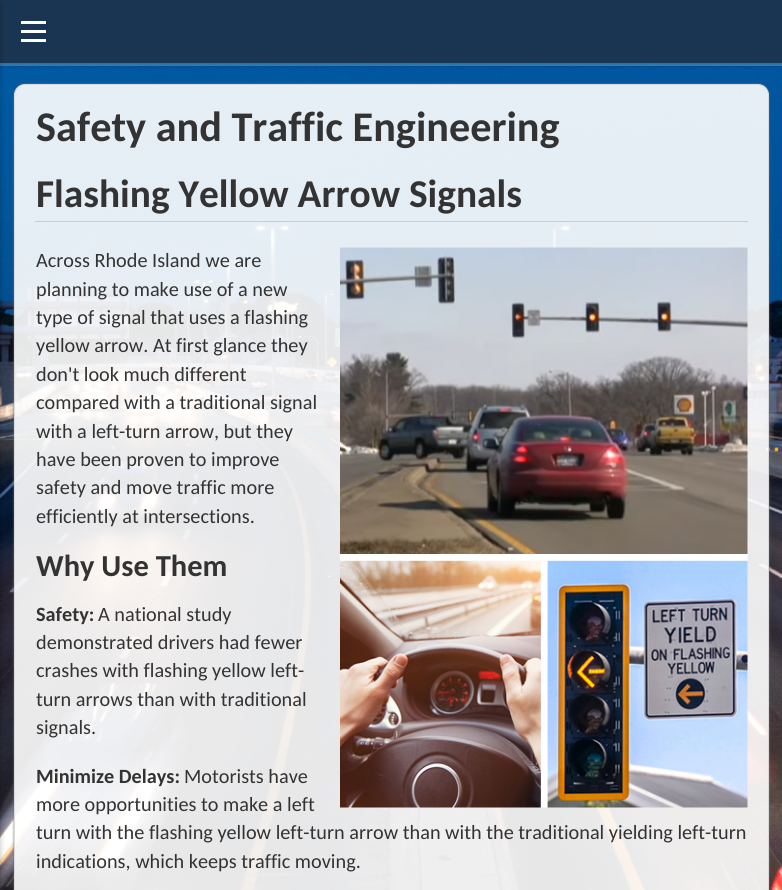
#include <cairo/cairo.h>
#include <math.h>
#include <stddef.h>

typedef struct { double x, y; const char *s; } line_t;
typedef struct { double x, y, w, h; unsigned color; } box_t;
static cairo_t *cr;

static void rgb(unsigned color)
{
	cairo_set_source_rgb(cr, (color >> 16) / 255.0, (color >> 8 & 255) / 255.0, (color & 255) / 255.0);
}

static void rrect(double x, double y, double w, double h, double r)
{
	cairo_new_sub_path(cr);
	cairo_arc(cr, x + w - r, y + h - r, r, 0, M_PI / 2);
	cairo_arc(cr, x + r, y + h - r, r, M_PI / 2, M_PI);
	cairo_arc(cr, x + r, y + r, r, M_PI, 1.5 * M_PI);
	cairo_arc(cr, x + w - r, y + r, r, 1.5 * M_PI, 2 * M_PI);
	cairo_close_path(cr);
}

static void soft_shadow(double x, double y, double w, double h, double r, double blur, double alpha)
{
	cairo_push_group_with_content(cr, CAIRO_CONTENT_ALPHA);
	cairo_set_operator(cr, CAIRO_OPERATOR_SOURCE);
	for (int i = 15; i >= -15 && fmin(w, h) + blur * i / 3 > 0; i -= 2) {
		double e = blur * i / 6;
		cairo_set_source_rgba(cr, 0, 0, 0, alpha * erfc((i - 1) / 8.5) / 2);
		rrect(x - e, y - e, w + 2 * e, h + 2 * e, fmax(0, fmin(r + e + blur * .6, fmin(w, h) / 2 + e)));
		cairo_fill(cr);
	}
	cairo_pattern_t *soft = cairo_pop_group(cr);
	cairo_mask(cr, soft);
	cairo_pattern_destroy(soft);
}

static void image(const char *path, double x, double y, double w, double h)
{
	cairo_surface_t *image = cairo_image_surface_create_from_png(path);
	cairo_save(cr);
	cairo_set_source_surface(cr, image, x, y);
	cairo_rectangle(cr, x, y, w, h);
	cairo_fill(cr);
	cairo_restore(cr);
	cairo_surface_destroy(image);
}

int main(void) {
	cairo_surface_t *surface = cairo_image_surface_create(CAIRO_FORMAT_RGB24, 782, 890);
	cr = cairo_create(surface);
	cairo_font_options_t *options = cairo_font_options_create();
	cairo_font_options_set_hint_metrics(options, CAIRO_HINT_METRICS_OFF);
	cairo_font_options_set_hint_style(options, CAIRO_HINT_STYLE_NONE);
	cairo_set_font_options(cr, options);
	cairo_set_miter_limit(cr, 4);
	rgb(0xffffff);
	cairo_paint(cr);
	image("img/1.png", 0, 63, 782, 827);
	cairo_set_source_rgba(cr, 0.247, 0.557, 0.8, 0.9);
	cairo_rectangle(cr, 0, 63, 782, 3);
	cairo_fill(cr);
	rgb(0x000000);
	soft_shadow(0, 3, 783, 62, 0, 3, 0.26);
	{
		static const box_t items[] = {
			{0, 0, 782, 63, 0x1a3551},
			{21, 21, 25, 3, 0xffffff},
			{21, 30, 25, 3, 0xffffff},
			{21, 39, 25, 3, 0xffffff},
		};
		for (size_t i = 0; i < sizeof items / sizeof *items; i++) {
			rgb(items[i].color);
			cairo_rectangle(cr, items[i].x, items[i].y, items[i].w, items[i].h);
			cairo_fill(cr);
		}
	}
	rgb(0x000000);
	soft_shadow(-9, 3, 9, 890, 0, 3, 0.26);
	cairo_save(cr);
	cairo_set_fill_rule(cr, CAIRO_FILL_RULE_EVEN_ODD);
	cairo_new_path(cr);
	cairo_move_to(cr, 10, 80);
	cairo_line_to(cr, 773, 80);
	cairo_line_to(cr, 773, 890);
	cairo_line_to(cr, 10, 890);
	cairo_close_path(cr);
	cairo_move_to(cr, 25, 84);
	cairo_line_to(cr, 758, 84);
	cairo_curve_to(cr, 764, 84, 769, 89, 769, 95);
	cairo_line_to(cr, 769, 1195);
	cairo_curve_to(cr, 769, 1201, 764, 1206, 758, 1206);
	cairo_line_to(cr, 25, 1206);
	cairo_curve_to(cr, 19, 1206, 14, 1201, 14, 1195);
	cairo_line_to(cr, 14, 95);
	cairo_curve_to(cr, 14, 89, 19, 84, 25, 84);
	cairo_close_path(cr);
	cairo_clip(cr);
	rgb(0x667183);
	soft_shadow(14, 84, 755, 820, 11, 1, 1);
	cairo_restore(cr);
	cairo_set_source_rgba(cr, 1, 1, 1, 0.9);
	rrect(14.5, 84.5, 754, 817, 10.5);
	cairo_fill_preserve(cr);
	rgb(0xd9d9d9);
	cairo_set_line_width(cr, 1);
	cairo_stroke(cr);
	rgb(0xcccccc);
	cairo_rectangle(cr, 35, 221, 713, 1);
	cairo_fill(cr);
	image("img/2.png", 340, 247, 408, 561);
	cairo_select_font_face(cr, "Carlito", CAIRO_FONT_SLANT_NORMAL, CAIRO_FONT_WEIGHT_BOLD);
	cairo_set_font_size(cr, 42.25);
	rgb(0x333333);
	cairo_move_to(cr, 36, 141);
	cairo_show_text(cr, "Safety and Traffic Engineering");
	cairo_set_font_size(cr, 39.4);
	cairo_move_to(cr, 36, 207);
	cairo_show_text(cr, "Flashing Yellow Arrow Signals");
	cairo_select_font_face(cr, "Carlito", CAIRO_FONT_SLANT_NORMAL, CAIRO_FONT_WEIGHT_NORMAL);
	cairo_set_font_size(cr, 20.25);
	{
		static const line_t items[] = {
			{36, 267, "Across Rhode Island we are"},
			{36, 296, "planning to make use of a new"},
			{36, 324, "type of signal that uses a flashing"},
			{36, 352, "yellow arrow. At first glance they"},
			{36, 381, "don't look much different"},
			{36, 409, "compared with a traditional signal"},
			{36, 438, "with a left-turn arrow, but they"},
			{36, 466, "have been proven to improve"},
			{36, 494, "safety and move traffic more"},
			{36, 523, "efficiently at intersections."},
		};
		for (size_t i = 0; i < sizeof items / sizeof *items; i++) {
			cairo_move_to(cr, items[i].x, items[i].y);
			cairo_show_text(cr, items[i].s);
		}
	}
	cairo_select_font_face(cr, "Carlito", CAIRO_FONT_SLANT_NORMAL, CAIRO_FONT_WEIGHT_BOLD);
	cairo_set_font_size(cr, 30.5);
	cairo_move_to(cr, 36, 576);
	cairo_show_text(cr, "Why Use Them");
	cairo_set_font_size(cr, 20.25);
	cairo_move_to(cr, 36, 621);
	cairo_show_text(cr, "Safety:");
	cairo_select_font_face(cr, "Carlito", CAIRO_FONT_SLANT_NORMAL, CAIRO_FONT_WEIGHT_NORMAL);
	{
		static const line_t items[] = {
			{98, 621, "A national study"},
			{36, 649, "demonstrated drivers had fewer"},
			{36, 677, "crashes with flashing yellow left-"},
			{36, 706, "turn arrows than with traditional"},
			{36, 734, "signals."},
		};
		for (size_t i = 0; i < sizeof items / sizeof *items; i++) {
			cairo_move_to(cr, items[i].x, items[i].y);
			cairo_show_text(cr, items[i].s);
		}
	}
	cairo_select_font_face(cr, "Carlito", CAIRO_FONT_SLANT_NORMAL, CAIRO_FONT_WEIGHT_BOLD);
	cairo_move_to(cr, 36, 783);
	cairo_show_text(cr, "Minimize Delays:");
	cairo_select_font_face(cr, "Carlito", CAIRO_FONT_SLANT_NORMAL, CAIRO_FONT_WEIGHT_NORMAL);
	{
		static const line_t items[] = {
			{184, 783, "Motorists have"},
			{36, 811, "more opportunities to make a left"},
			{36, 839, "turn with the flashing yellow left-turn arrow than with the traditional yielding left-turn"},
			{36, 868, "indications, which keeps traffic moving."},
		};
		for (size_t i = 0; i < sizeof items / sizeof *items; i++) {
			cairo_move_to(cr, items[i].x, items[i].y);
			cairo_show_text(cr, items[i].s);
		}
	}
	cairo_surface_write_to_png(surface, "page.png");
	cairo_font_options_destroy(options);
	cairo_destroy(cr);
	cairo_surface_destroy(surface);
	return 0;
}
